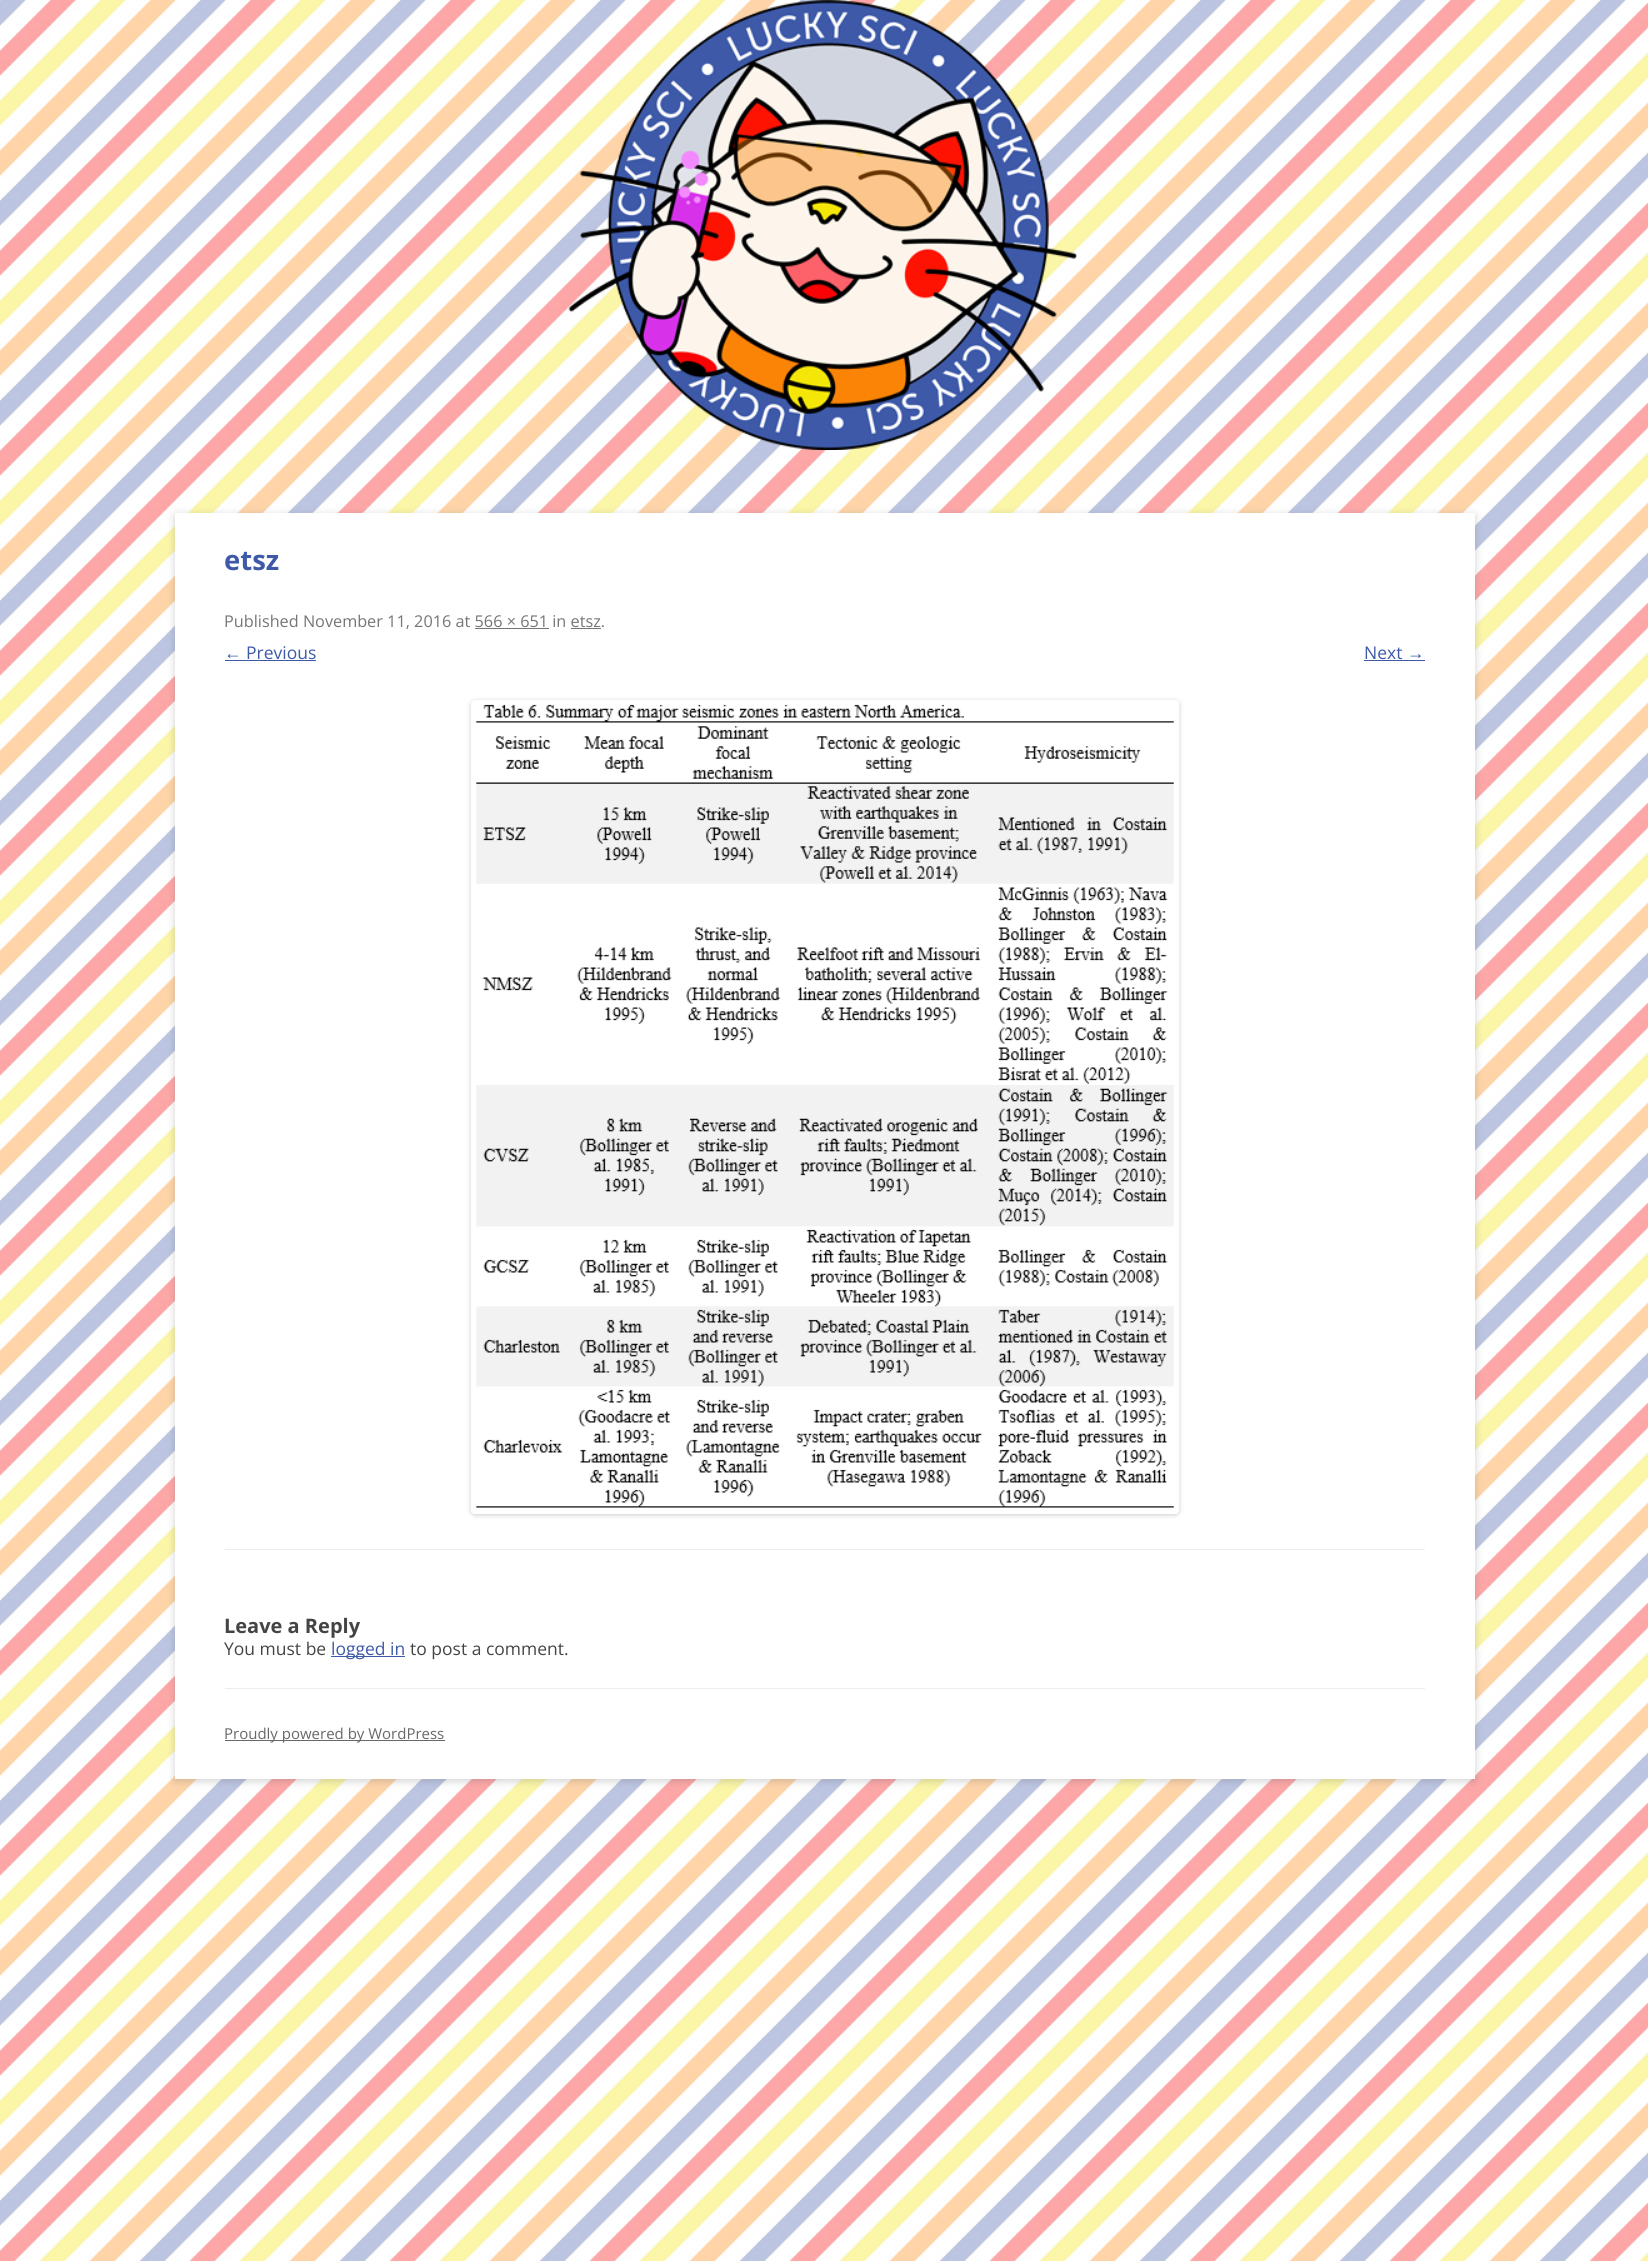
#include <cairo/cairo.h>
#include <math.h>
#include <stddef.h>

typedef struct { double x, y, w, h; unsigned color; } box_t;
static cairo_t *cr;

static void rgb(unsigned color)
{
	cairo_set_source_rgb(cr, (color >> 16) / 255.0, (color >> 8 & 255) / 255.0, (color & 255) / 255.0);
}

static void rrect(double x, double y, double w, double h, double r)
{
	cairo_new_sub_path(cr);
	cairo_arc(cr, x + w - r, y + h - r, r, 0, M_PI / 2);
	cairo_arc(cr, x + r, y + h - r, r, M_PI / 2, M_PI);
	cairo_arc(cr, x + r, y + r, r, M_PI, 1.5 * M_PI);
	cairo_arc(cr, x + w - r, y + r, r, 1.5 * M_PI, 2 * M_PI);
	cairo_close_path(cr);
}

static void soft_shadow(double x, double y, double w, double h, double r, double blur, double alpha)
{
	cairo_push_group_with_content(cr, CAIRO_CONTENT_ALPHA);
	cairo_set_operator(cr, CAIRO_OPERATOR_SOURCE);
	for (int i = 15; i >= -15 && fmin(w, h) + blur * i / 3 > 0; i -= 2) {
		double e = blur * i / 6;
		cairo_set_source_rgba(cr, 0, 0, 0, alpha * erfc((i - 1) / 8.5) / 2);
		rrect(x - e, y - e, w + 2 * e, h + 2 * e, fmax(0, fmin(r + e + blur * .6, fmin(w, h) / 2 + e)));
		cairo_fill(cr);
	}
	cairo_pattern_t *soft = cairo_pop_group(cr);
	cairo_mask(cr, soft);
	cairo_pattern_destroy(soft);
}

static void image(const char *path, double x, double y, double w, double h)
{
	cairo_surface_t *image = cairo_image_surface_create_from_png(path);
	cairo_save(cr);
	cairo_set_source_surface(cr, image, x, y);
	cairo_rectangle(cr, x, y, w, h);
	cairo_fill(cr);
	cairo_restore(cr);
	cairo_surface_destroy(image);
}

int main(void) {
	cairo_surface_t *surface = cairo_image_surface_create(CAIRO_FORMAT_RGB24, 1648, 2261);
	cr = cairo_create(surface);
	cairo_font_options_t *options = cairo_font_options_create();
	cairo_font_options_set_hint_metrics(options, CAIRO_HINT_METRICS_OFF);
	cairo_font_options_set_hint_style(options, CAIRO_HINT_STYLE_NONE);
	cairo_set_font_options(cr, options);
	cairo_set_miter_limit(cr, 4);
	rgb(0xffffff);
	cairo_paint(cr);
	image("img/1.png", 0, 0, 1648, 2261);
	image("img/2.png", 568, 0, 509, 450);
	rgb(0x646464);
	soft_shadow(175, 515, 1300, 1266, 0, 4, 0.3);
	{
		static const box_t items[] = {
			{175, 513, 1300, 1266, 0xffffff},
			{225, 1549, 1200, 1, 0xededed},
			{475, 628, 74, 1, 0x757575},
			{571, 628, 30, 1, 0x757575},
			{225, 660, 91, 1, 0x3d59a8},
			{1364, 660, 61, 1, 0x3d59a8},
		};
		for (size_t i = 0; i < sizeof items / sizeof *items; i++) {
			rgb(items[i].color);
			cairo_rectangle(cr, items[i].x, items[i].y, items[i].w, items[i].h);
			cairo_fill(cr);
		}
	}
	cairo_save(cr);
	cairo_set_fill_rule(cr, CAIRO_FILL_RULE_EVEN_ODD);
	cairo_new_path(cr);
	cairo_move_to(cr, 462, 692);
	cairo_line_to(cr, 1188, 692);
	cairo_line_to(cr, 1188, 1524);
	cairo_line_to(cr, 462, 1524);
	cairo_close_path(cr);
	cairo_move_to(cr, 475, 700);
	cairo_line_to(cr, 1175, 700);
	cairo_curve_to(cr, 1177, 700, 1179, 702, 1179, 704);
	cairo_line_to(cr, 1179, 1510);
	cairo_curve_to(cr, 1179, 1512, 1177, 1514, 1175, 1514);
	cairo_line_to(cr, 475, 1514);
	cairo_curve_to(cr, 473, 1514, 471, 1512, 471, 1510);
	cairo_line_to(cr, 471, 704);
	cairo_curve_to(cr, 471, 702, 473, 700, 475, 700);
	cairo_close_path(cr);
	cairo_clip(cr);
	rgb(0x000000);
	soft_shadow(471, 701, 708, 814, 4, 2.5, 0.2);
	cairo_restore(cr);
	image("img/3.png", 471, 704, 708, 810);
	{
		static const box_t items[] = {
			{331, 1656, 74, 1, 0x3d59a8},
			{225, 1688, 1200, 1, 0xededed},
			{225, 1740, 220, 1, 0x686868},
		};
		for (size_t i = 0; i < sizeof items / sizeof *items; i++) {
			rgb(items[i].color);
			cairo_rectangle(cr, items[i].x, items[i].y, items[i].w, items[i].h);
			cairo_fill(cr);
		}
	}
	cairo_select_font_face(cr, "Open Sans", CAIRO_FONT_SLANT_NORMAL, CAIRO_FONT_WEIGHT_BOLD);
	cairo_set_font_size(cr, 27.5);
	rgb(0x3d59a8);
	cairo_move_to(cr, 224, 570);
	cairo_show_text(cr, "etsz");
	cairo_select_font_face(cr, "Open Sans", CAIRO_FONT_SLANT_NORMAL, CAIRO_FONT_WEIGHT_NORMAL);
	cairo_set_font_size(cr, 16.25);
	rgb(0x757575);
	cairo_move_to(cr, 224, 627);
	cairo_show_text(cr, "Published November 11, 2016 at 566 × 651 in etsz.");
	cairo_select_font_face(cr, "Liberation Sans", CAIRO_FONT_SLANT_NORMAL, CAIRO_FONT_WEIGHT_NORMAL);
	cairo_set_font_size(cr, 17.5);
	rgb(0x3d59a8);
	cairo_move_to(cr, 224, 659);
	cairo_show_text(cr, "←");
	cairo_select_font_face(cr, "Open Sans", CAIRO_FONT_SLANT_NORMAL, CAIRO_FONT_WEIGHT_NORMAL);
	cairo_move_to(cr, 246, 659);
	cairo_show_text(cr, "Previous");
	cairo_move_to(cr, 1364, 659);
	cairo_show_text(cr, "Next");
	cairo_select_font_face(cr, "Liberation Sans", CAIRO_FONT_SLANT_NORMAL, CAIRO_FONT_WEIGHT_NORMAL);
	cairo_move_to(cr, 1407, 659);
	cairo_show_text(cr, "→");
	cairo_select_font_face(cr, "Open Sans", CAIRO_FONT_SLANT_NORMAL, CAIRO_FONT_WEIGHT_BOLD);
	cairo_set_font_size(cr, 20);
	rgb(0x444444);
	cairo_move_to(cr, 224, 1633);
	cairo_show_text(cr, "Leave a Reply");
	cairo_select_font_face(cr, "Open Sans", CAIRO_FONT_SLANT_NORMAL, CAIRO_FONT_WEIGHT_NORMAL);
	cairo_set_font_size(cr, 17.5);
	cairo_move_to(cr, 224, 1655);
	cairo_show_text(cr, "You must be");
	rgb(0x3d59a8);
	cairo_move_to(cr, 331, 1655);
	cairo_show_text(cr, "logged in");
	rgb(0x444444);
	cairo_move_to(cr, 410, 1655);
	cairo_show_text(cr, "to post a comment.");
	cairo_set_font_size(cr, 15);
	rgb(0x686868);
	cairo_move_to(cr, 224, 1739);
	cairo_show_text(cr, "Proudly powered by WordPress");
	cairo_surface_write_to_png(surface, "page.png");
	cairo_font_options_destroy(options);
	cairo_destroy(cr);
	cairo_surface_destroy(surface);
	return 0;
}
